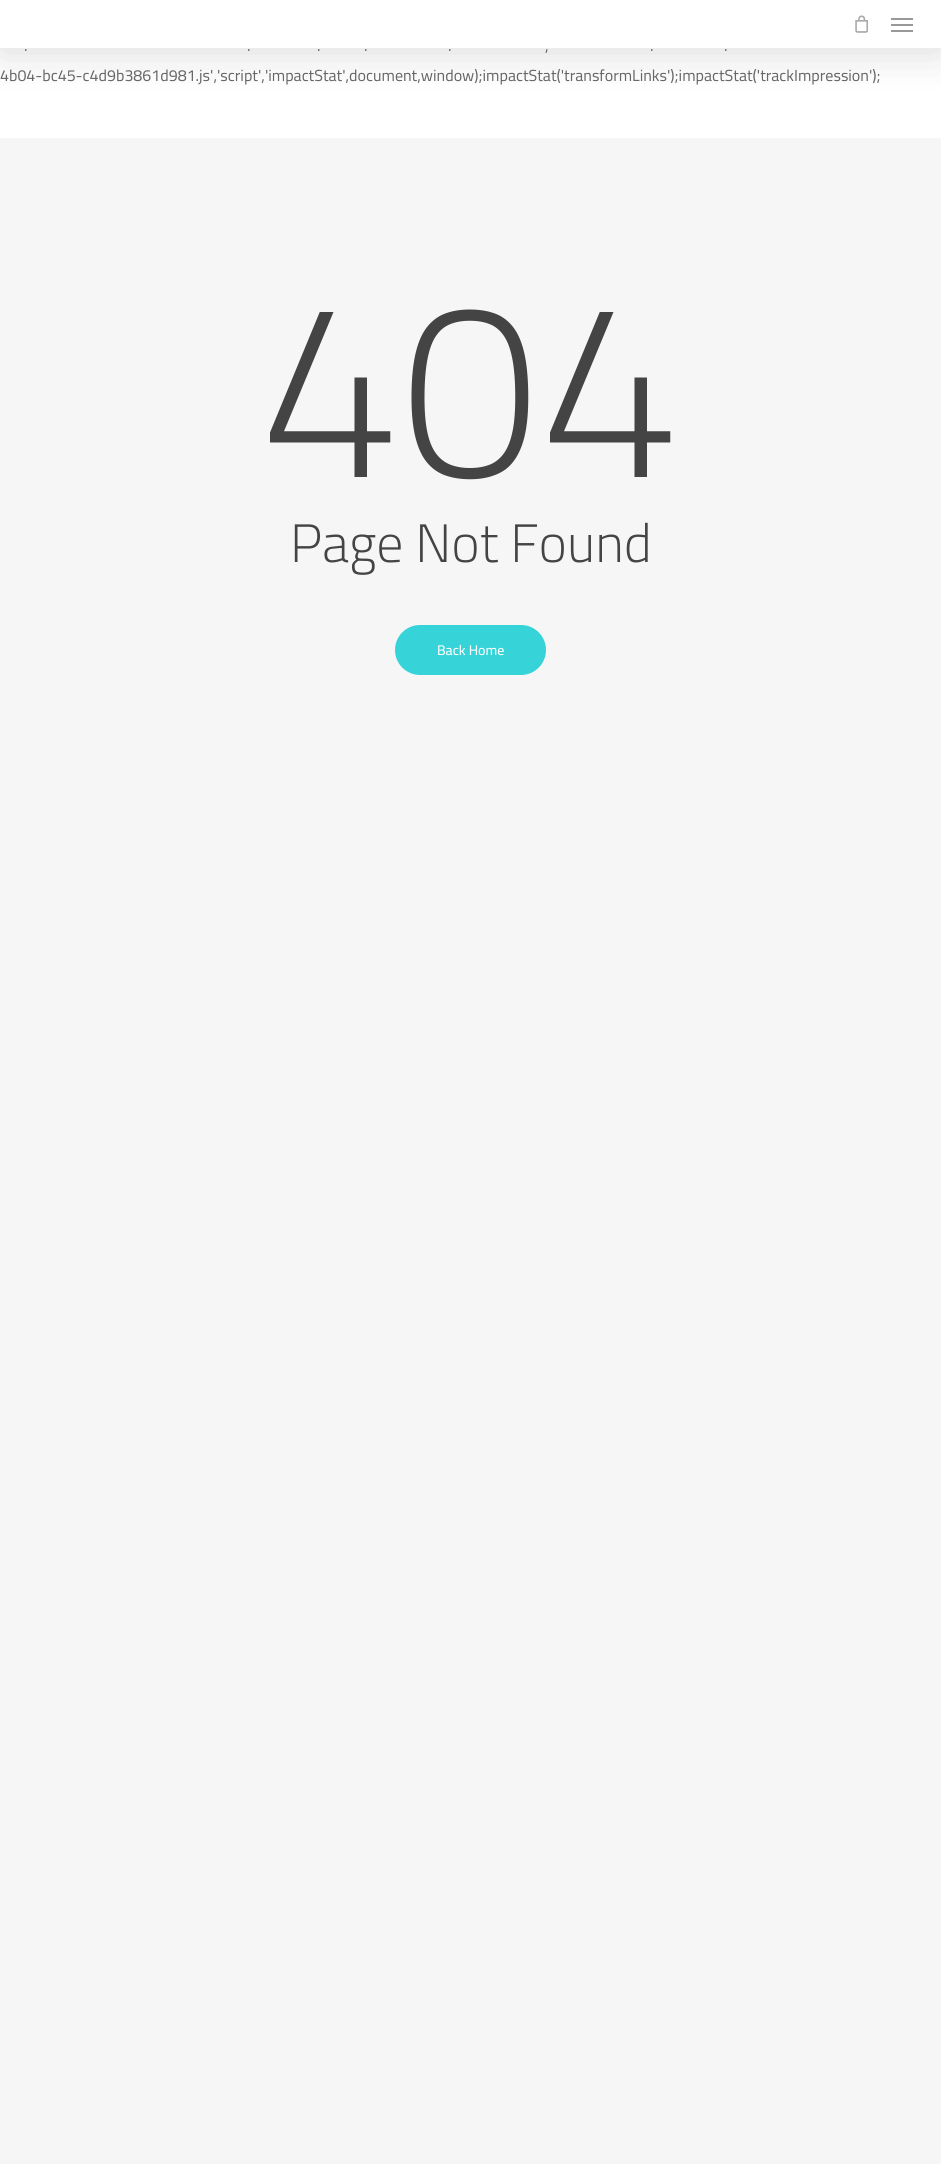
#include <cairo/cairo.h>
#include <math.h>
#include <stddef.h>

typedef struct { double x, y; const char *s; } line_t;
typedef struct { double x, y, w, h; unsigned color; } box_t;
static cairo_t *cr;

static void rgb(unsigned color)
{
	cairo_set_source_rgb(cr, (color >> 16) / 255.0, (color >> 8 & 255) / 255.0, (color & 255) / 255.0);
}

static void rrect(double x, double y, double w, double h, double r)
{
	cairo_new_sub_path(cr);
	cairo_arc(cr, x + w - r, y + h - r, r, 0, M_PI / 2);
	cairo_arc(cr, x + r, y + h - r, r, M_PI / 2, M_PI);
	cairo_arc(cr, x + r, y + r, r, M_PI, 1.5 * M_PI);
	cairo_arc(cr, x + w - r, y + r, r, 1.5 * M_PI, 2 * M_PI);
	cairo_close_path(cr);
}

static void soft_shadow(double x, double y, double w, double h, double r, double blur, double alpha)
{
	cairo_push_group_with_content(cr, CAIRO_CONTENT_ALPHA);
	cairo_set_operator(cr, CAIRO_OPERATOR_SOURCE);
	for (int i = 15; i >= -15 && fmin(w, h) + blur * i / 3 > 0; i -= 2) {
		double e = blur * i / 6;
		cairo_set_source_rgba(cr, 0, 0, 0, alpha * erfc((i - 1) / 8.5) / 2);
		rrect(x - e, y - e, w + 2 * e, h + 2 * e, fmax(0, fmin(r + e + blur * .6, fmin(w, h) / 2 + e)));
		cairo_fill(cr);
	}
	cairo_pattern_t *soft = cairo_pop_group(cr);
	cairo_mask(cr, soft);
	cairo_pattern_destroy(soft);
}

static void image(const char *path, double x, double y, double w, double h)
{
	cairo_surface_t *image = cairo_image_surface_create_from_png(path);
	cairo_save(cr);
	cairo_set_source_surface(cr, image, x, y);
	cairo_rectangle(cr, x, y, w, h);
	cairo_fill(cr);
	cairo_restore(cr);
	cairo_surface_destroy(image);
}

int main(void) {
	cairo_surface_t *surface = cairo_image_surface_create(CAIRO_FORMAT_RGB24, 941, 2164);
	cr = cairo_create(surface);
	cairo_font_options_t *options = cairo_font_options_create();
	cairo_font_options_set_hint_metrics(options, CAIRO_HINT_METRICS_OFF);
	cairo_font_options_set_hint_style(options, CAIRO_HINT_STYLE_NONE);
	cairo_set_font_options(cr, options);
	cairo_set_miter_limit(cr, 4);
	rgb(0xffffff);
	cairo_paint(cr);
	rgb(0x000000);
	soft_shadow(0, 3, 941, 48, 0, 22.5, 0.15);
	rgb(0xffffff);
	cairo_rectangle(cr, 0, 0, 941, 48);
	cairo_fill(cr);
	image("img/1.png", 855, 15, 13, 18);
	{
		static const box_t items[] = {
			{891, 18, 22, 2, 0x999999},
			{891, 30, 22, 2, 0x999999},
			{891, 24, 22, 2, 0x999999},
			{0, 138, 941, 2026, 0xf6f6f6},
		};
		for (size_t i = 0; i < sizeof items / sizeof *items; i++) {
			rgb(items[i].color);
			cairo_rectangle(cr, items[i].x, items[i].y, items[i].w, items[i].h);
			cairo_fill(cr);
		}
	}
	rgb(0x36d3d8);
	rrect(395, 625, 151, 50, 25);
	cairo_fill(cr);
	cairo_select_font_face(cr, "Cairo", CAIRO_FONT_SLANT_NORMAL, CAIRO_FONT_WEIGHT_NORMAL);
	cairo_set_font_size(cr, 16);
	rgb(0x676767);
	{
		static const line_t items[] = {
			{24, 51, "."},
			{247, 51, "."},
			{317, 51, "."},
			{364, 51, "."},
			{448, 51, "."},
			{545, 51, ","},
			{650, 51, "."},
			{724, 51, "."},
			{0, 81, "4b04-bc45-c4d9b3861d981.js','script','impactStat',document,window);impactStat('transformLinks');impactStat('trackImpression');"},
		};
		for (size_t i = 0; i < sizeof items / sizeof *items; i++) {
			cairo_move_to(cr, items[i].x, items[i].y);
			cairo_show_text(cr, items[i].s);
		}
	}
	cairo_select_font_face(cr, "Cairo Light", CAIRO_FONT_SLANT_NORMAL, CAIRO_FONT_WEIGHT_NORMAL);
	cairo_set_font_size(cr, 250);
	rgb(0x444444);
	cairo_move_to(cr, 260, 477);
	cairo_show_text(cr, "404");
	cairo_set_font_size(cr, 54);
	cairo_move_to(cr, 290, 562);
	cairo_show_text(cr, "Page Not Found");
	cairo_select_font_face(cr, "Cairo Medium", CAIRO_FONT_SLANT_NORMAL, CAIRO_FONT_WEIGHT_NORMAL);
	cairo_set_font_size(cr, 14);
	rgb(0xffffff);
	cairo_move_to(cr, 437, 655);
	cairo_show_text(cr, "Back Home");
	cairo_surface_write_to_png(surface, "page.png");
	cairo_font_options_destroy(options);
	cairo_destroy(cr);
	cairo_surface_destroy(surface);
	return 0;
}
